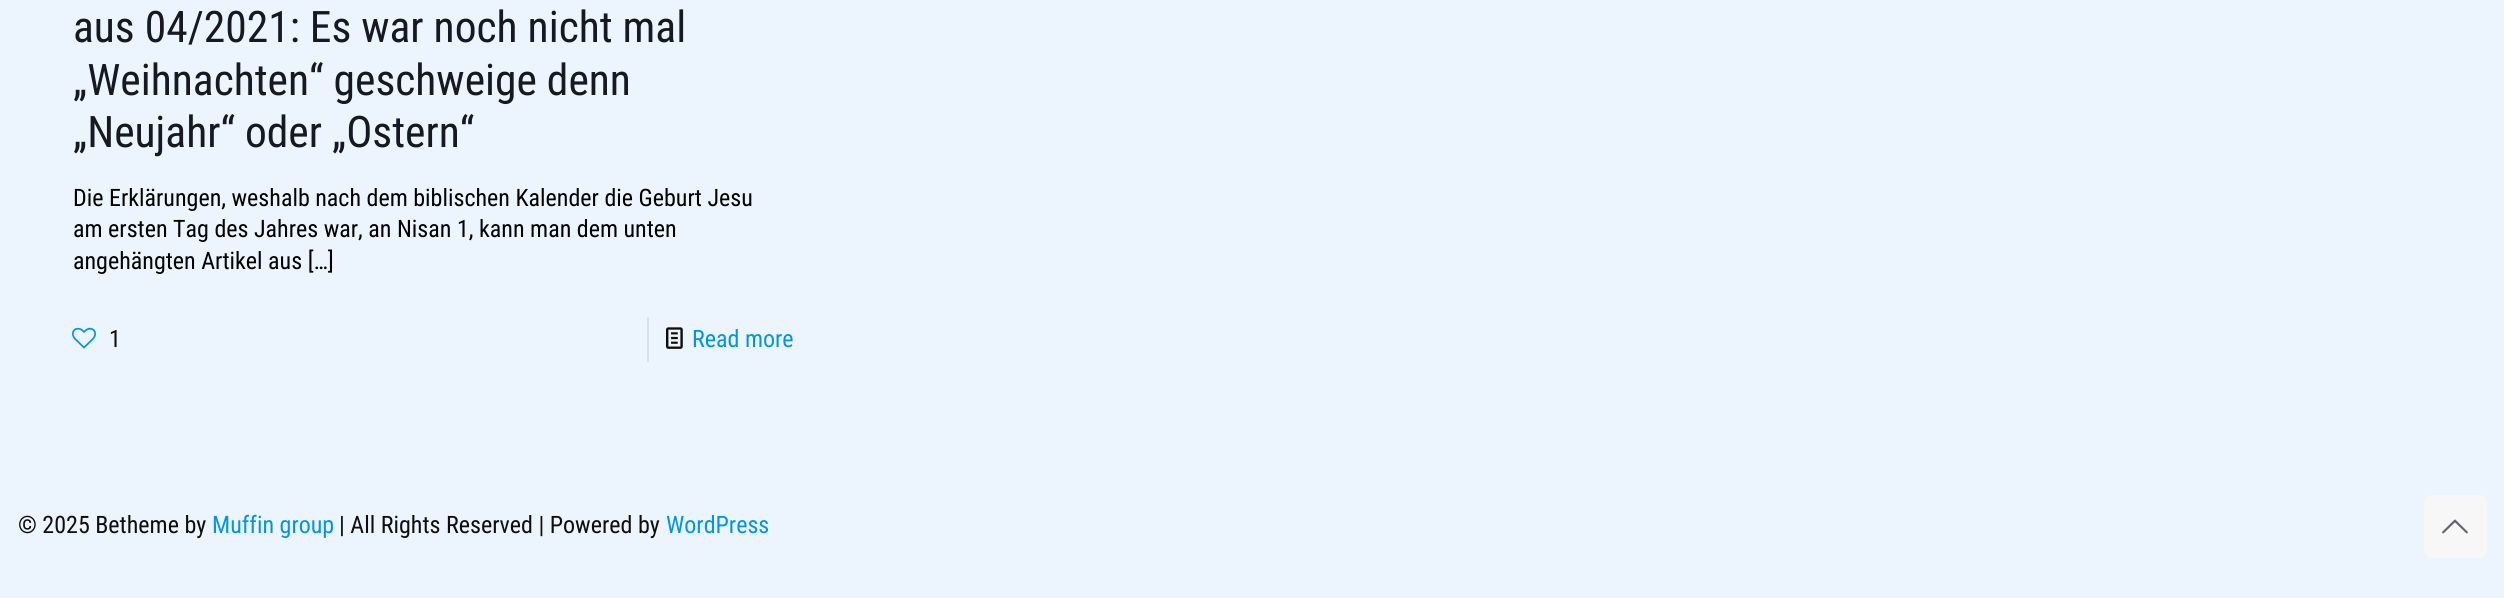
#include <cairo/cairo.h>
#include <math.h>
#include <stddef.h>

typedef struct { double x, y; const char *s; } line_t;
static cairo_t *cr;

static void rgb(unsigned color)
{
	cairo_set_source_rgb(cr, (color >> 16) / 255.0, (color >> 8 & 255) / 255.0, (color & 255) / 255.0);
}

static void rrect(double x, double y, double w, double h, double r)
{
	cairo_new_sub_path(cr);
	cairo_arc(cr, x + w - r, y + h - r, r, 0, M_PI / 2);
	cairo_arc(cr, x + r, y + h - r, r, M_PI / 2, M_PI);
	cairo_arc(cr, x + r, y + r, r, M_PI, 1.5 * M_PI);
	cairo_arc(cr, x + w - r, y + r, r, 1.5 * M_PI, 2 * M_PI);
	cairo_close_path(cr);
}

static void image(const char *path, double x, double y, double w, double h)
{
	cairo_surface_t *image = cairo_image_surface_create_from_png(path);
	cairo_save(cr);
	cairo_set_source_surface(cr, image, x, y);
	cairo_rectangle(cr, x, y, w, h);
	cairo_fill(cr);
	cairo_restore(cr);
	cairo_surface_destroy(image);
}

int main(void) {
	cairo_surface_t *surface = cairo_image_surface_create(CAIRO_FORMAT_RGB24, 2504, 598);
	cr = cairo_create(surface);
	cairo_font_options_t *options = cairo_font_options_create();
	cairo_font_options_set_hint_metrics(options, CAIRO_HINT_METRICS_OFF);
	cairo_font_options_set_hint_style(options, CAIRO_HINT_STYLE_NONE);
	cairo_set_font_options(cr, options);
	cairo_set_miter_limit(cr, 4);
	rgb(0xecf5fd);
	cairo_paint(cr);
	image("img/1.png", 72, 327, 24, 22);
	rgb(0xd9e1e9);
	cairo_rectangle(cr, 647, 317, 2, 45);
	cairo_fill(cr);
	image("img/2.png", 666, 327, 17, 22);
	rgb(0xf7f7f7);
	rrect(2424, 495, 63, 63, 8);
	cairo_fill(cr);
	image("img/3.png", 2442, 519, 26, 15);
	cairo_select_font_face(cr, "Roboto Condensed", CAIRO_FONT_SLANT_NORMAL, CAIRO_FONT_WEIGHT_NORMAL);
	cairo_set_font_size(cr, 43.5);
	rgb(0x161922);
	{
		static const line_t items[] = {
			{73, 42, "aus 04/2021: Es war noch nicht mal"},
			{73, 95, "„Weihnachten“ geschweige denn"},
			{73, 147, "„Neujahr“ oder „Ostern“"},
		};
		for (size_t i = 0; i < sizeof items / sizeof *items; i++) {
			cairo_move_to(cr, items[i].x, items[i].y);
			cairo_show_text(cr, items[i].s);
		}
	}
	cairo_set_font_size(cr, 24);
	rgb(0x000000);
	{
		static const line_t items[] = {
			{73, 206, "Die Erklärungen, weshalb nach dem biblischen Kalender die Geburt Jesu"},
			{73, 237, "am ersten Tag des Jahres war, an Nisan 1, kann man dem unten"},
			{73, 269, "angehängten Artikel aus […]"},
		};
		for (size_t i = 0; i < sizeof items / sizeof *items; i++) {
			cairo_move_to(cr, items[i].x, items[i].y);
			cairo_show_text(cr, items[i].s);
		}
	}
	rgb(0x100d0d);
	cairo_move_to(cr, 109, 347);
	cairo_show_text(cr, "1");
	rgb(0x0095eb);
	cairo_move_to(cr, 692, 347);
	cairo_show_text(cr, "Read more");
	rgb(0x100d0d);
	cairo_move_to(cr, 18, 533);
	cairo_show_text(cr, "© 2025 Betheme by");
	rgb(0x0095eb);
	cairo_move_to(cr, 212, 533);
	cairo_show_text(cr, "Muffin group");
	rgb(0x100d0d);
	cairo_move_to(cr, 339, 533);
	cairo_show_text(cr, "| All Rights Reserved | Powered by");
	rgb(0x0095eb);
	cairo_move_to(cr, 666, 533);
	cairo_show_text(cr, "WordPress");
	cairo_surface_write_to_png(surface, "page.png");
	cairo_font_options_destroy(options);
	cairo_destroy(cr);
	cairo_surface_destroy(surface);
	return 0;
}
